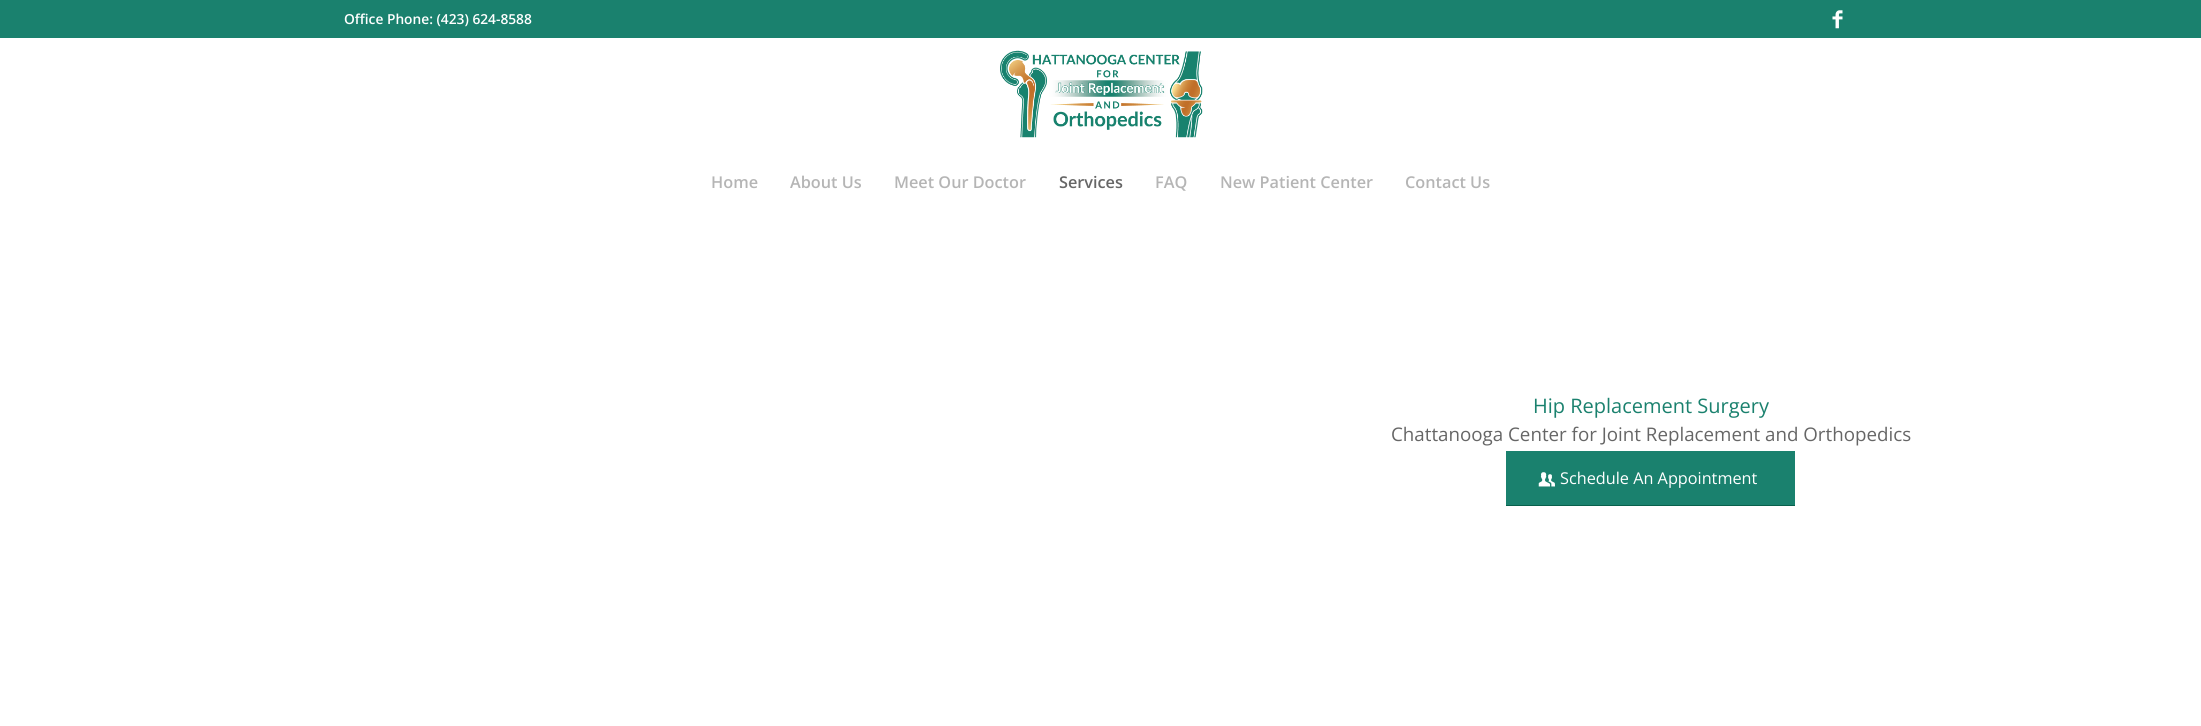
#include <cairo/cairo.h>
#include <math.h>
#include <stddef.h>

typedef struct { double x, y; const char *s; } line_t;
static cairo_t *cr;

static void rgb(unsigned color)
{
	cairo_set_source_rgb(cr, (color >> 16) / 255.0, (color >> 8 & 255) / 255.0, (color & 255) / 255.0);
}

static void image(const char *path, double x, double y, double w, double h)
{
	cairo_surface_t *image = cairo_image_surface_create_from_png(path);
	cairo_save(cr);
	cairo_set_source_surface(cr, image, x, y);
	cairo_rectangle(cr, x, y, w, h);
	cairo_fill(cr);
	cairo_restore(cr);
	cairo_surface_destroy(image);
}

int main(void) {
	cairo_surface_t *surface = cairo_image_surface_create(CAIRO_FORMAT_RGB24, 2201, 726);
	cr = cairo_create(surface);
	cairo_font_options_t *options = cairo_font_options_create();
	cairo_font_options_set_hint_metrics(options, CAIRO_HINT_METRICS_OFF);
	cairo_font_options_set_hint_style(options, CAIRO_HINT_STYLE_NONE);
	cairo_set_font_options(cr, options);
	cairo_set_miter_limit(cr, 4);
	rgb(0xffffff);
	cairo_paint(cr);
	rgb(0x1a816e);
	cairo_rectangle(cr, 0, 0, 2201, 38);
	cairo_fill(cr);
	image("img/1.png", 1832, 10, 11, 19);
	image("img/2.png", 1000, 50, 203, 88);
	cairo_rectangle(cr, 1506, 451, 289, 54);
	cairo_fill(cr);
	rgb(0x08604c);
	cairo_rectangle(cr, 1506, 505, 289, 1);
	cairo_fill(cr);
	image("img/3.png", 1538, 472, 17, 15);
	cairo_select_font_face(cr, "Open Sans SemiBold", CAIRO_FONT_SLANT_NORMAL, CAIRO_FONT_WEIGHT_NORMAL);
	cairo_set_font_size(cr, 13.75);
	rgb(0xffffff);
	cairo_move_to(cr, 344, 24);
	cairo_show_text(cr, "Office Phone: (423) 624-8588");
	cairo_set_font_size(cr, 16.25);
	rgb(0xb5b5b5);
	{
		static const line_t items[] = {
			{711, 188, "Home"},
			{790, 188, "About Us"},
			{894, 188, "Meet Our Doctor"},
		};
		for (size_t i = 0; i < sizeof items / sizeof *items; i++) {
			cairo_move_to(cr, items[i].x, items[i].y);
			cairo_show_text(cr, items[i].s);
		}
	}
	rgb(0x666666);
	cairo_move_to(cr, 1059, 188);
	cairo_show_text(cr, "Services");
	rgb(0xb5b5b5);
	{
		static const line_t items[] = {
			{1155, 188, "FAQ"},
			{1220, 188, "New Patient Center"},
			{1405, 188, "Contact Us"},
		};
		for (size_t i = 0; i < sizeof items / sizeof *items; i++) {
			cairo_move_to(cr, items[i].x, items[i].y);
			cairo_show_text(cr, items[i].s);
		}
	}
	cairo_select_font_face(cr, "Open Sans", CAIRO_FONT_SLANT_NORMAL, CAIRO_FONT_WEIGHT_NORMAL);
	cairo_set_font_size(cr, 20);
	rgb(0x1a816e);
	cairo_move_to(cr, 1533, 413);
	cairo_show_text(cr, "Hip Replacement Surgery");
	cairo_set_font_size(cr, 18.75);
	rgb(0x666666);
	cairo_move_to(cr, 1391, 441);
	cairo_show_text(cr, "Chattanooga Center for Joint Replacement and Orthopedics");
	cairo_set_font_size(cr, 16.25);
	rgb(0xffffff);
	cairo_move_to(cr, 1560, 484);
	cairo_show_text(cr, "Schedule An Appointment");
	cairo_surface_write_to_png(surface, "page.png");
	cairo_font_options_destroy(options);
	cairo_destroy(cr);
	cairo_surface_destroy(surface);
	return 0;
}
